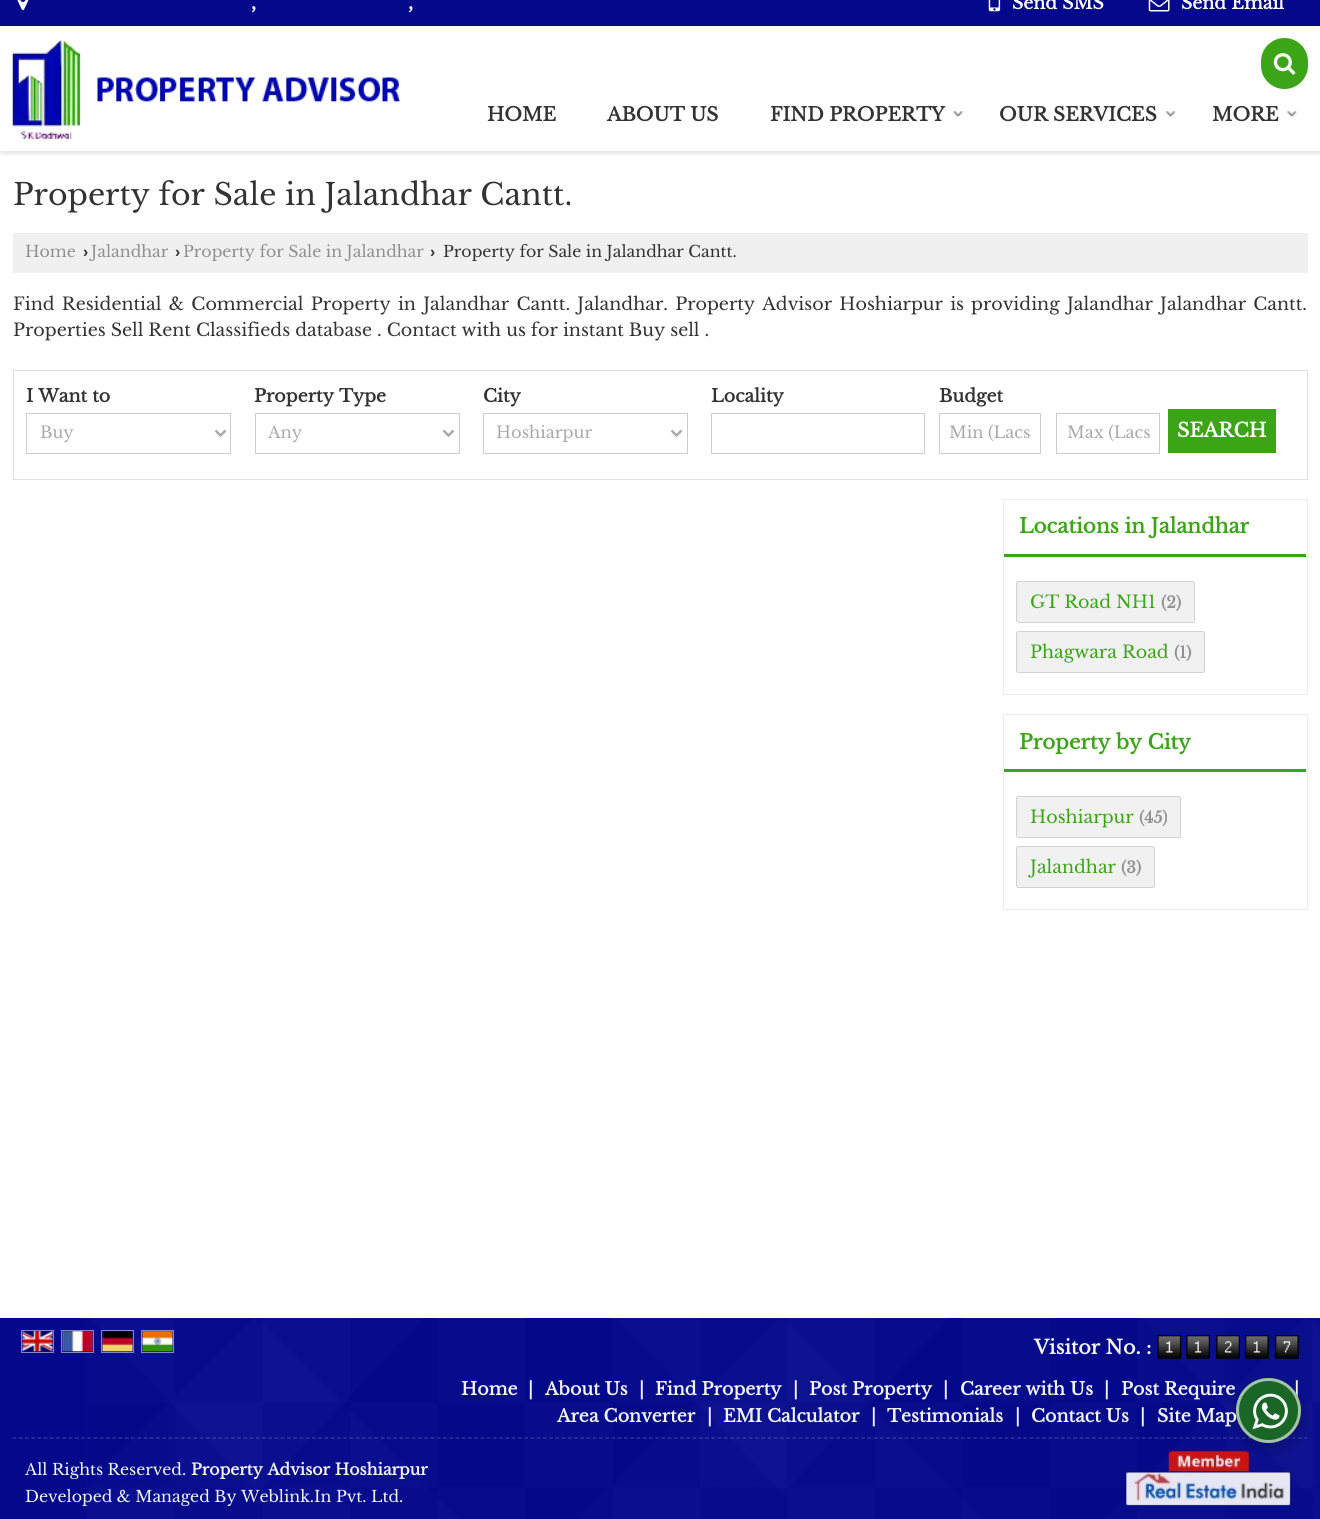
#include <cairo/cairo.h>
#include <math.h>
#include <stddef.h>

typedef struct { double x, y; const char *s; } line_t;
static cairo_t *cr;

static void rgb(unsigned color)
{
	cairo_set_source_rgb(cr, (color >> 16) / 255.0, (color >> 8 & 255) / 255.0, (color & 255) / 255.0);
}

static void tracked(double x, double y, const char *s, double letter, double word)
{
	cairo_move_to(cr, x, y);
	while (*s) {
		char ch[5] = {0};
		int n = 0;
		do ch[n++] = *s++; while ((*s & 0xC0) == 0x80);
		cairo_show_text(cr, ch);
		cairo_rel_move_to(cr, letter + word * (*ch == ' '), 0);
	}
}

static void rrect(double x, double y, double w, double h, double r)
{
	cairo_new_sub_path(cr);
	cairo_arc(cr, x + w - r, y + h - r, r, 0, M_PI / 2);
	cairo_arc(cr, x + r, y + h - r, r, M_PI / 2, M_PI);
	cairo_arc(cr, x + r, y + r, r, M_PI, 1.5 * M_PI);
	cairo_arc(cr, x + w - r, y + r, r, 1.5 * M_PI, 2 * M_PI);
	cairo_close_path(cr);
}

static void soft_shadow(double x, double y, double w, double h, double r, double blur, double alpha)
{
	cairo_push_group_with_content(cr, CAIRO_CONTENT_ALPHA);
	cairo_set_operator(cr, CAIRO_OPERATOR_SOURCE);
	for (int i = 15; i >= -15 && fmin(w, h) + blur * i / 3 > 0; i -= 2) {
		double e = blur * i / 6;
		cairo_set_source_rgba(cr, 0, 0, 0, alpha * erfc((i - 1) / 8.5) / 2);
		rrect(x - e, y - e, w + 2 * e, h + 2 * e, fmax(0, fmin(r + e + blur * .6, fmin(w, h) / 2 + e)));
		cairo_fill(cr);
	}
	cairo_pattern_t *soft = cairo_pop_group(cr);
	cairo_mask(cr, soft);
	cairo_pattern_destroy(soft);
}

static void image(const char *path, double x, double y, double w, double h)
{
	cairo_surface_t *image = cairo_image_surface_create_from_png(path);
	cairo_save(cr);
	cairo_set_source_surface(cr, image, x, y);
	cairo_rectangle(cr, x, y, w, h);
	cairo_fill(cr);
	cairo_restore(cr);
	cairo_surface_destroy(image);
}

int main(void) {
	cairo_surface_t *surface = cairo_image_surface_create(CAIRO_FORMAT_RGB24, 1320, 1519);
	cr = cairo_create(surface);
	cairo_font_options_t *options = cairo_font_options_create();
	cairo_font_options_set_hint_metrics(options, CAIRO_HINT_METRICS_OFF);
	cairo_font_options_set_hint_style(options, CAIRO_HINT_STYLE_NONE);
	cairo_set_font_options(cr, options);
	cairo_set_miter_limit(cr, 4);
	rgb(0xffffff);
	cairo_paint(cr);
	cairo_save(cr);
	cairo_rectangle(cr, 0, 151, 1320, 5);
	cairo_clip(cr);
	rgb(0x000000);
	soft_shadow(1, 29, 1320, 125, 0, 2, 0.1);
	cairo_restore(cr);
	rgb(0x04098c);
	cairo_rectangle(cr, 0, 0, 1320, 26);
	cairo_fill(cr);
	image("img/1.png", 17, 0, 12, 11);
	image("img/2.png", 988, 0, 13, 12);
	image("img/3.png", 1148, 0, 22, 12);
	image("img/4.png", 12, 39, 388, 100);
	rgb(0x3ca517);
	rrect(1261, 38, 47, 51, 23.5);
	cairo_fill(cr);
	image("img/5.png", 1273, 53, 23, 22);
	image("img/6.png", 953, 111, 10, 6);
	image("img/7.png", 1166, 111, 10, 7);
	image("img/8.png", 1287, 111, 10, 6);
	rgb(0xf0f0f0);
	cairo_rectangle(cr, 13, 233, 1295, 40);
	cairo_fill(cr);
	cairo_rectangle(cr, 13.5, 370.5, 1294, 109);
	rgb(0xdedede);
	cairo_set_line_width(cr, 1);
	cairo_stroke(cr);
	cairo_rectangle(cr, 26.5, 413.5, 204, 40);
	rgb(0xcccccc);
	cairo_stroke(cr);
	cairo_new_path(cr);
	cairo_move_to(cr, 215.5, 430.5);
	cairo_line_to(cr, 220.5, 435.5);
	cairo_line_to(cr, 225.5, 430.5);
	rgb(0xaaaaaa);
	cairo_set_line_width(cr, 2.5);
	cairo_stroke(cr);
	cairo_rectangle(cr, 255.5, 413.5, 204, 40);
	rgb(0xcccccc);
	cairo_set_line_width(cr, 1);
	cairo_stroke(cr);
	cairo_new_path(cr);
	cairo_move_to(cr, 443.5, 430.5);
	cairo_line_to(cr, 448.5, 435.5);
	cairo_line_to(cr, 453.5, 430.5);
	rgb(0xaaaaaa);
	cairo_set_line_width(cr, 2.5);
	cairo_stroke(cr);
	cairo_rectangle(cr, 483.5, 413.5, 204, 40);
	rgb(0xcccccc);
	cairo_set_line_width(cr, 1);
	cairo_stroke(cr);
	cairo_new_path(cr);
	cairo_move_to(cr, 671.5, 430.5);
	cairo_line_to(cr, 676.5, 435.5);
	cairo_line_to(cr, 681.5, 430.5);
	rgb(0xaaaaaa);
	cairo_set_line_width(cr, 2.5);
	cairo_stroke(cr);
	cairo_rectangle(cr, 711.5, 413.5, 213, 40);
	rgb(0xcccccc);
	cairo_set_line_width(cr, 1);
	cairo_stroke(cr);
	cairo_rectangle(cr, 939.5, 413.5, 101, 40);
	cairo_stroke(cr);
	cairo_rectangle(cr, 1056.5, 413.5, 103, 40);
	cairo_stroke(cr);
	rgb(0x3ca517);
	cairo_rectangle(cr, 1168, 409, 108, 44);
	cairo_fill(cr);
	cairo_rectangle(cr, 1003.5, 499.5, 304, 195);
	rgb(0xededed);
	cairo_stroke(cr);
	rgb(0x3ca517);
	cairo_rectangle(cr, 1004, 554, 302, 3);
	cairo_fill(cr);
	rgb(0xf1f1f1);
	rrect(1016, 581, 179, 42, 2.5);
	cairo_fill(cr);
	rrect(1016.5, 581.5, 178, 41, 2);
	cairo_set_source_rgba(cr, 0, 0, 0, 0.13);
	cairo_stroke(cr);
	rgb(0xf1f1f1);
	rrect(1016, 631, 189, 42, 2.5);
	cairo_fill(cr);
	rrect(1016.5, 631.5, 188, 41, 2);
	cairo_set_source_rgba(cr, 0, 0, 0, 0.13);
	cairo_stroke(cr);
	cairo_rectangle(cr, 1003.5, 714.5, 304, 195);
	rgb(0xededed);
	cairo_stroke(cr);
	rgb(0x3ca517);
	cairo_rectangle(cr, 1004, 769, 302, 3);
	cairo_fill(cr);
	rgb(0xf1f1f1);
	rrect(1016, 796, 165, 42, 2.5);
	cairo_fill(cr);
	rrect(1016.5, 796.5, 164, 41, 2);
	cairo_set_source_rgba(cr, 0, 0, 0, 0.13);
	cairo_stroke(cr);
	rgb(0xf1f1f1);
	rrect(1016, 846, 139, 42, 2.5);
	cairo_fill(cr);
	rrect(1016.5, 846.5, 138, 41, 2);
	cairo_set_source_rgba(cr, 0, 0, 0, 0.13);
	cairo_stroke(cr);
	rgb(0x04098c);
	cairo_rectangle(cr, 0, 1318, 1320, 201);
	cairo_fill(cr);
	image("img/9.png", 86, 1318, 1234, 201);
	cairo_rectangle(cr, 21.5, 1330.5, 32, 22);
	rgb(0x8284c6);
	cairo_stroke(cr);
	cairo_rectangle(cr, 61.5, 1330.5, 32, 22);
	cairo_set_source_rgba(cr, 1, 1, 1, 0.5);
	cairo_stroke(cr);
	cairo_rectangle(cr, 101.5, 1330.5, 32, 22);
	cairo_stroke(cr);
	cairo_rectangle(cr, 141.5, 1330.5, 32, 22);
	rgb(0x8487c7);
	cairo_stroke(cr);
	image("img/10.png", 22, 1331, 31, 21);
	image("img/11.png", 62, 1331, 31, 21);
	image("img/12.png", 102, 1331, 31, 21);
	image("img/13.png", 142, 1331, 31, 21);
	image("img/14.png", 1157, 1335, 25, 24);
	image("img/15.png", 1186, 1335, 24, 24);
	image("img/16.png", 1216, 1335, 24, 24);
	image("img/17.png", 1245, 1335, 24, 24);
	image("img/18.png", 1275, 1335, 24, 24);
	image("img/19.png", 1296, 1421, 3, 6);
	cairo_new_path(cr);
	cairo_move_to(cr, 12.5, 1438);
	cairo_line_to(cr, 1307.5, 1438);
	cairo_set_source_rgba(cr, 1, 1, 1, 0.2);
	cairo_set_line_width(cr, 1.2);
	cairo_set_dash(cr, (double[]){3.75, 2.49}, 2, 0);
	cairo_stroke(cr);
	image("img/20.png", 1125, 1451, 167, 56);
	rgb(0x000000);
	soft_shadow(1234, 1383, 70, 70, 35, 5, 0.14);
	cairo_select_font_face(cr, "Libre Baskerville", CAIRO_FONT_SLANT_NORMAL, CAIRO_FONT_WEIGHT_BOLD);
	cairo_set_font_size(cr, 19);
	rgb(0xffffff);
	cairo_move_to(cr, 251, 9);
	cairo_show_text(cr, ",");
	cairo_move_to(cr, 408, 9);
	cairo_show_text(cr, ",");
	cairo_set_font_size(cr, 17.5);
	cairo_move_to(cr, 1012, 9);
	cairo_show_text(cr, "Send SMS");
	cairo_move_to(cr, 1181, 9);
	cairo_show_text(cr, "Send Email");
	cairo_set_font_size(cr, 18.75);
	rgb(0x333333);
	{
		static const line_t items[] = {
			{487, 121, "HOME"},
			{607, 121, "ABOUT US"},
			{770, 121, "FIND PROPERTY"},
			{999, 121, "OUR SERVICES"},
			{1212, 121, "MORE"},
		};
		for (size_t i = 0; i < sizeof items / sizeof *items; i++) {
			cairo_move_to(cr, items[i].x, items[i].y);
			cairo_show_text(cr, items[i].s);
		}
	}
	cairo_select_font_face(cr, "Libre Baskerville", CAIRO_FONT_SLANT_NORMAL, CAIRO_FONT_WEIGHT_NORMAL);
	cairo_set_font_size(cr, 30);
	cairo_move_to(cr, 13, 205);
	cairo_show_text(cr, "Property for Sale in Jalandhar Cantt.");
	cairo_set_font_size(cr, 15.75);
	rgb(0x909090);
	cairo_move_to(cr, 25, 257);
	cairo_show_text(cr, "Home");
	cairo_select_font_face(cr, "Liberation Sans", CAIRO_FONT_SLANT_NORMAL, CAIRO_FONT_WEIGHT_BOLD);
	rgb(0x333333);
	cairo_move_to(cr, 83, 257);
	cairo_show_text(cr, "›");
	cairo_select_font_face(cr, "Libre Baskerville", CAIRO_FONT_SLANT_NORMAL, CAIRO_FONT_WEIGHT_NORMAL);
	rgb(0x909090);
	cairo_move_to(cr, 91, 257);
	cairo_show_text(cr, "Jalandhar");
	cairo_select_font_face(cr, "Liberation Sans", CAIRO_FONT_SLANT_NORMAL, CAIRO_FONT_WEIGHT_BOLD);
	rgb(0x333333);
	cairo_move_to(cr, 175, 257);
	cairo_show_text(cr, "›");
	cairo_select_font_face(cr, "Libre Baskerville", CAIRO_FONT_SLANT_NORMAL, CAIRO_FONT_WEIGHT_NORMAL);
	rgb(0x909090);
	cairo_move_to(cr, 183, 257);
	cairo_show_text(cr, "Property for Sale in Jalandhar");
	cairo_select_font_face(cr, "Liberation Sans", CAIRO_FONT_SLANT_NORMAL, CAIRO_FONT_WEIGHT_BOLD);
	rgb(0x333333);
	cairo_move_to(cr, 430, 257);
	cairo_show_text(cr, "›");
	cairo_select_font_face(cr, "Libre Baskerville", CAIRO_FONT_SLANT_NORMAL, CAIRO_FONT_WEIGHT_NORMAL);
	cairo_move_to(cr, 443, 257);
	cairo_show_text(cr, "Property for Sale in Jalandhar Cantt.");
	cairo_set_font_size(cr, 17.5);
	tracked(13, 310, "Find Residential & Commercial Property in Jalandhar Cantt. Jalandhar. Property Advisor Hoshiarpur is", 0, 2.25);
	tracked(971, 310, "providing Jalandhar Jalandhar Cantt.", 0, 2.25);
	cairo_move_to(cr, 13, 336);
	cairo_show_text(cr, "Properties Sell Rent Classifieds database . Contact with us for instant Buy sell .");
	cairo_select_font_face(cr, "Libre Baskerville", CAIRO_FONT_SLANT_NORMAL, CAIRO_FONT_WEIGHT_BOLD);
	cairo_move_to(cr, 26, 402);
	cairo_show_text(cr, "I Want to");
	cairo_select_font_face(cr, "Libre Baskerville", CAIRO_FONT_SLANT_NORMAL, CAIRO_FONT_WEIGHT_NORMAL);
	cairo_set_font_size(cr, 16.25);
	rgb(0xaaaaaa);
	cairo_move_to(cr, 40, 438);
	cairo_show_text(cr, "Buy");
	cairo_select_font_face(cr, "Libre Baskerville", CAIRO_FONT_SLANT_NORMAL, CAIRO_FONT_WEIGHT_BOLD);
	cairo_set_font_size(cr, 17.5);
	rgb(0x333333);
	cairo_move_to(cr, 254, 402);
	cairo_show_text(cr, "Property Type");
	cairo_select_font_face(cr, "Libre Baskerville", CAIRO_FONT_SLANT_NORMAL, CAIRO_FONT_WEIGHT_NORMAL);
	cairo_set_font_size(cr, 16.25);
	rgb(0xaaaaaa);
	cairo_move_to(cr, 268, 438);
	cairo_show_text(cr, "Any");
	cairo_select_font_face(cr, "Libre Baskerville", CAIRO_FONT_SLANT_NORMAL, CAIRO_FONT_WEIGHT_BOLD);
	cairo_set_font_size(cr, 17.5);
	rgb(0x333333);
	cairo_move_to(cr, 483, 402);
	cairo_show_text(cr, "City");
	cairo_select_font_face(cr, "Libre Baskerville", CAIRO_FONT_SLANT_NORMAL, CAIRO_FONT_WEIGHT_NORMAL);
	cairo_set_font_size(cr, 16.25);
	rgb(0xaaaaaa);
	cairo_move_to(cr, 496, 438);
	cairo_show_text(cr, "Hoshiarpur");
	cairo_select_font_face(cr, "Libre Baskerville", CAIRO_FONT_SLANT_NORMAL, CAIRO_FONT_WEIGHT_BOLD);
	cairo_set_font_size(cr, 17.5);
	rgb(0x333333);
	cairo_move_to(cr, 711, 402);
	cairo_show_text(cr, "Locality");
	cairo_move_to(cr, 939, 402);
	cairo_show_text(cr, "Budget");
	cairo_select_font_face(cr, "Libre Baskerville", CAIRO_FONT_SLANT_NORMAL, CAIRO_FONT_WEIGHT_NORMAL);
	cairo_set_font_size(cr, 16.25);
	rgb(0xaaaaaa);
	cairo_move_to(cr, 949, 438);
	cairo_show_text(cr, "Min (Lacs");
	cairo_move_to(cr, 1067, 438);
	cairo_show_text(cr, "Max (Lacs");
	cairo_select_font_face(cr, "Libre Baskerville", CAIRO_FONT_SLANT_NORMAL, CAIRO_FONT_WEIGHT_BOLD);
	cairo_set_font_size(cr, 19.25);
	rgb(0xffffff);
	cairo_move_to(cr, 1177, 437);
	cairo_show_text(cr, "SEARCH");
	cairo_set_font_size(cr, 20);
	rgb(0x3ca517);
	cairo_move_to(cr, 1019, 533);
	cairo_show_text(cr, "Locations in Jalandhar");
	cairo_select_font_face(cr, "Libre Baskerville", CAIRO_FONT_SLANT_NORMAL, CAIRO_FONT_WEIGHT_NORMAL);
	cairo_set_font_size(cr, 17.5);
	cairo_move_to(cr, 1030, 608);
	cairo_show_text(cr, "GT Road NH1");
	cairo_select_font_face(cr, "Libre Baskerville", CAIRO_FONT_SLANT_NORMAL, CAIRO_FONT_WEIGHT_BOLD);
	cairo_set_font_size(cr, 15.75);
	rgb(0x909090);
	cairo_move_to(cr, 1161, 608);
	cairo_show_text(cr, "(2)");
	cairo_select_font_face(cr, "Libre Baskerville", CAIRO_FONT_SLANT_NORMAL, CAIRO_FONT_WEIGHT_NORMAL);
	cairo_set_font_size(cr, 17.5);
	rgb(0x3ca517);
	cairo_move_to(cr, 1030, 658);
	cairo_show_text(cr, "Phagwara Road");
	cairo_select_font_face(cr, "Libre Baskerville", CAIRO_FONT_SLANT_NORMAL, CAIRO_FONT_WEIGHT_BOLD);
	cairo_set_font_size(cr, 15.75);
	rgb(0x909090);
	cairo_move_to(cr, 1174, 658);
	cairo_show_text(cr, "(1)");
	cairo_set_font_size(cr, 20);
	rgb(0x3ca517);
	cairo_move_to(cr, 1019, 749);
	cairo_show_text(cr, "Property by City");
	cairo_select_font_face(cr, "Libre Baskerville", CAIRO_FONT_SLANT_NORMAL, CAIRO_FONT_WEIGHT_NORMAL);
	cairo_set_font_size(cr, 17.5);
	cairo_move_to(cr, 1030, 823);
	cairo_show_text(cr, "Hoshiarpur");
	cairo_select_font_face(cr, "Libre Baskerville", CAIRO_FONT_SLANT_NORMAL, CAIRO_FONT_WEIGHT_BOLD);
	cairo_set_font_size(cr, 15.75);
	rgb(0x909090);
	cairo_move_to(cr, 1139, 823);
	cairo_show_text(cr, "(45)");
	cairo_select_font_face(cr, "Libre Baskerville", CAIRO_FONT_SLANT_NORMAL, CAIRO_FONT_WEIGHT_NORMAL);
	cairo_set_font_size(cr, 17.5);
	rgb(0x3ca517);
	cairo_move_to(cr, 1030, 873);
	cairo_show_text(cr, "Jalandhar");
	cairo_select_font_face(cr, "Libre Baskerville", CAIRO_FONT_SLANT_NORMAL, CAIRO_FONT_WEIGHT_BOLD);
	cairo_set_font_size(cr, 15.75);
	rgb(0x909090);
	cairo_move_to(cr, 1121, 873);
	cairo_show_text(cr, "(3)");
	cairo_set_font_size(cr, 19.25);
	rgb(0xf2f3f9);
	cairo_move_to(cr, 1034, 1354);
	cairo_show_text(cr, "Visitor No. :");
	cairo_set_font_size(cr, 17.5);
	{
		static const line_t items[] = {
			{461, 1395, "Home"},
			{528, 1395, "|"},
			{545, 1395, "About Us"},
			{639, 1395, "|"},
			{655, 1395, "Find Property"},
			{793, 1395, "|"},
			{809, 1395, "Post Property"},
			{943, 1395, "|"},
			{960, 1395, "Career with Us"},
			{1104, 1395, "|"},
			{1121, 1395, "Post Require"},
			{1294, 1395, "|"},
			{557, 1422, "Area Converter"},
			{707, 1422, "|"},
			{723, 1422, "EMI Calculator"},
			{871, 1422, "|"},
			{887, 1422, "Testimonials"},
			{1015, 1422, "|"},
			{1031, 1422, "Contact Us"},
			{1140, 1422, "|"},
			{1157, 1422, "Site Map"},
		};
		for (size_t i = 0; i < sizeof items / sizeof *items; i++) {
			cairo_move_to(cr, items[i].x, items[i].y);
			cairo_show_text(cr, items[i].s);
		}
	}
	cairo_select_font_face(cr, "Libre Baskerville", CAIRO_FONT_SLANT_NORMAL, CAIRO_FONT_WEIGHT_NORMAL);
	cairo_set_font_size(cr, 15.75);
	cairo_move_to(cr, 25, 1475);
	cairo_show_text(cr, "All Rights Reserved.");
	cairo_select_font_face(cr, "Libre Baskerville", CAIRO_FONT_SLANT_NORMAL, CAIRO_FONT_WEIGHT_BOLD);
	cairo_move_to(cr, 191, 1475);
	cairo_show_text(cr, "Property Advisor Hoshiarpur");
	cairo_select_font_face(cr, "Libre Baskerville", CAIRO_FONT_SLANT_NORMAL, CAIRO_FONT_WEIGHT_NORMAL);
	cairo_move_to(cr, 25, 1502);
	cairo_show_text(cr, "Developed & Managed By Weblink.In Pvt. Ltd.");
	rgb(0x196626);
	cairo_new_path(cr);
	cairo_arc(cr, 1268.5, 1410.5, 32.5, 0, 2 * M_PI);
	cairo_fill(cr);
	cairo_arc(cr, 1268.5, 1410.5, 31, 0, 2 * M_PI);
	cairo_set_source_rgba(cr, 1, 1, 1, 0.6);
	cairo_set_line_width(cr, 3);
	cairo_set_dash(cr, NULL, 0, 0);
	cairo_stroke(cr);
	image("img/21.png", 1252, 1393, 36, 37);
	cairo_surface_write_to_png(surface, "page.png");
	cairo_font_options_destroy(options);
	cairo_destroy(cr);
	cairo_surface_destroy(surface);
	return 0;
}
